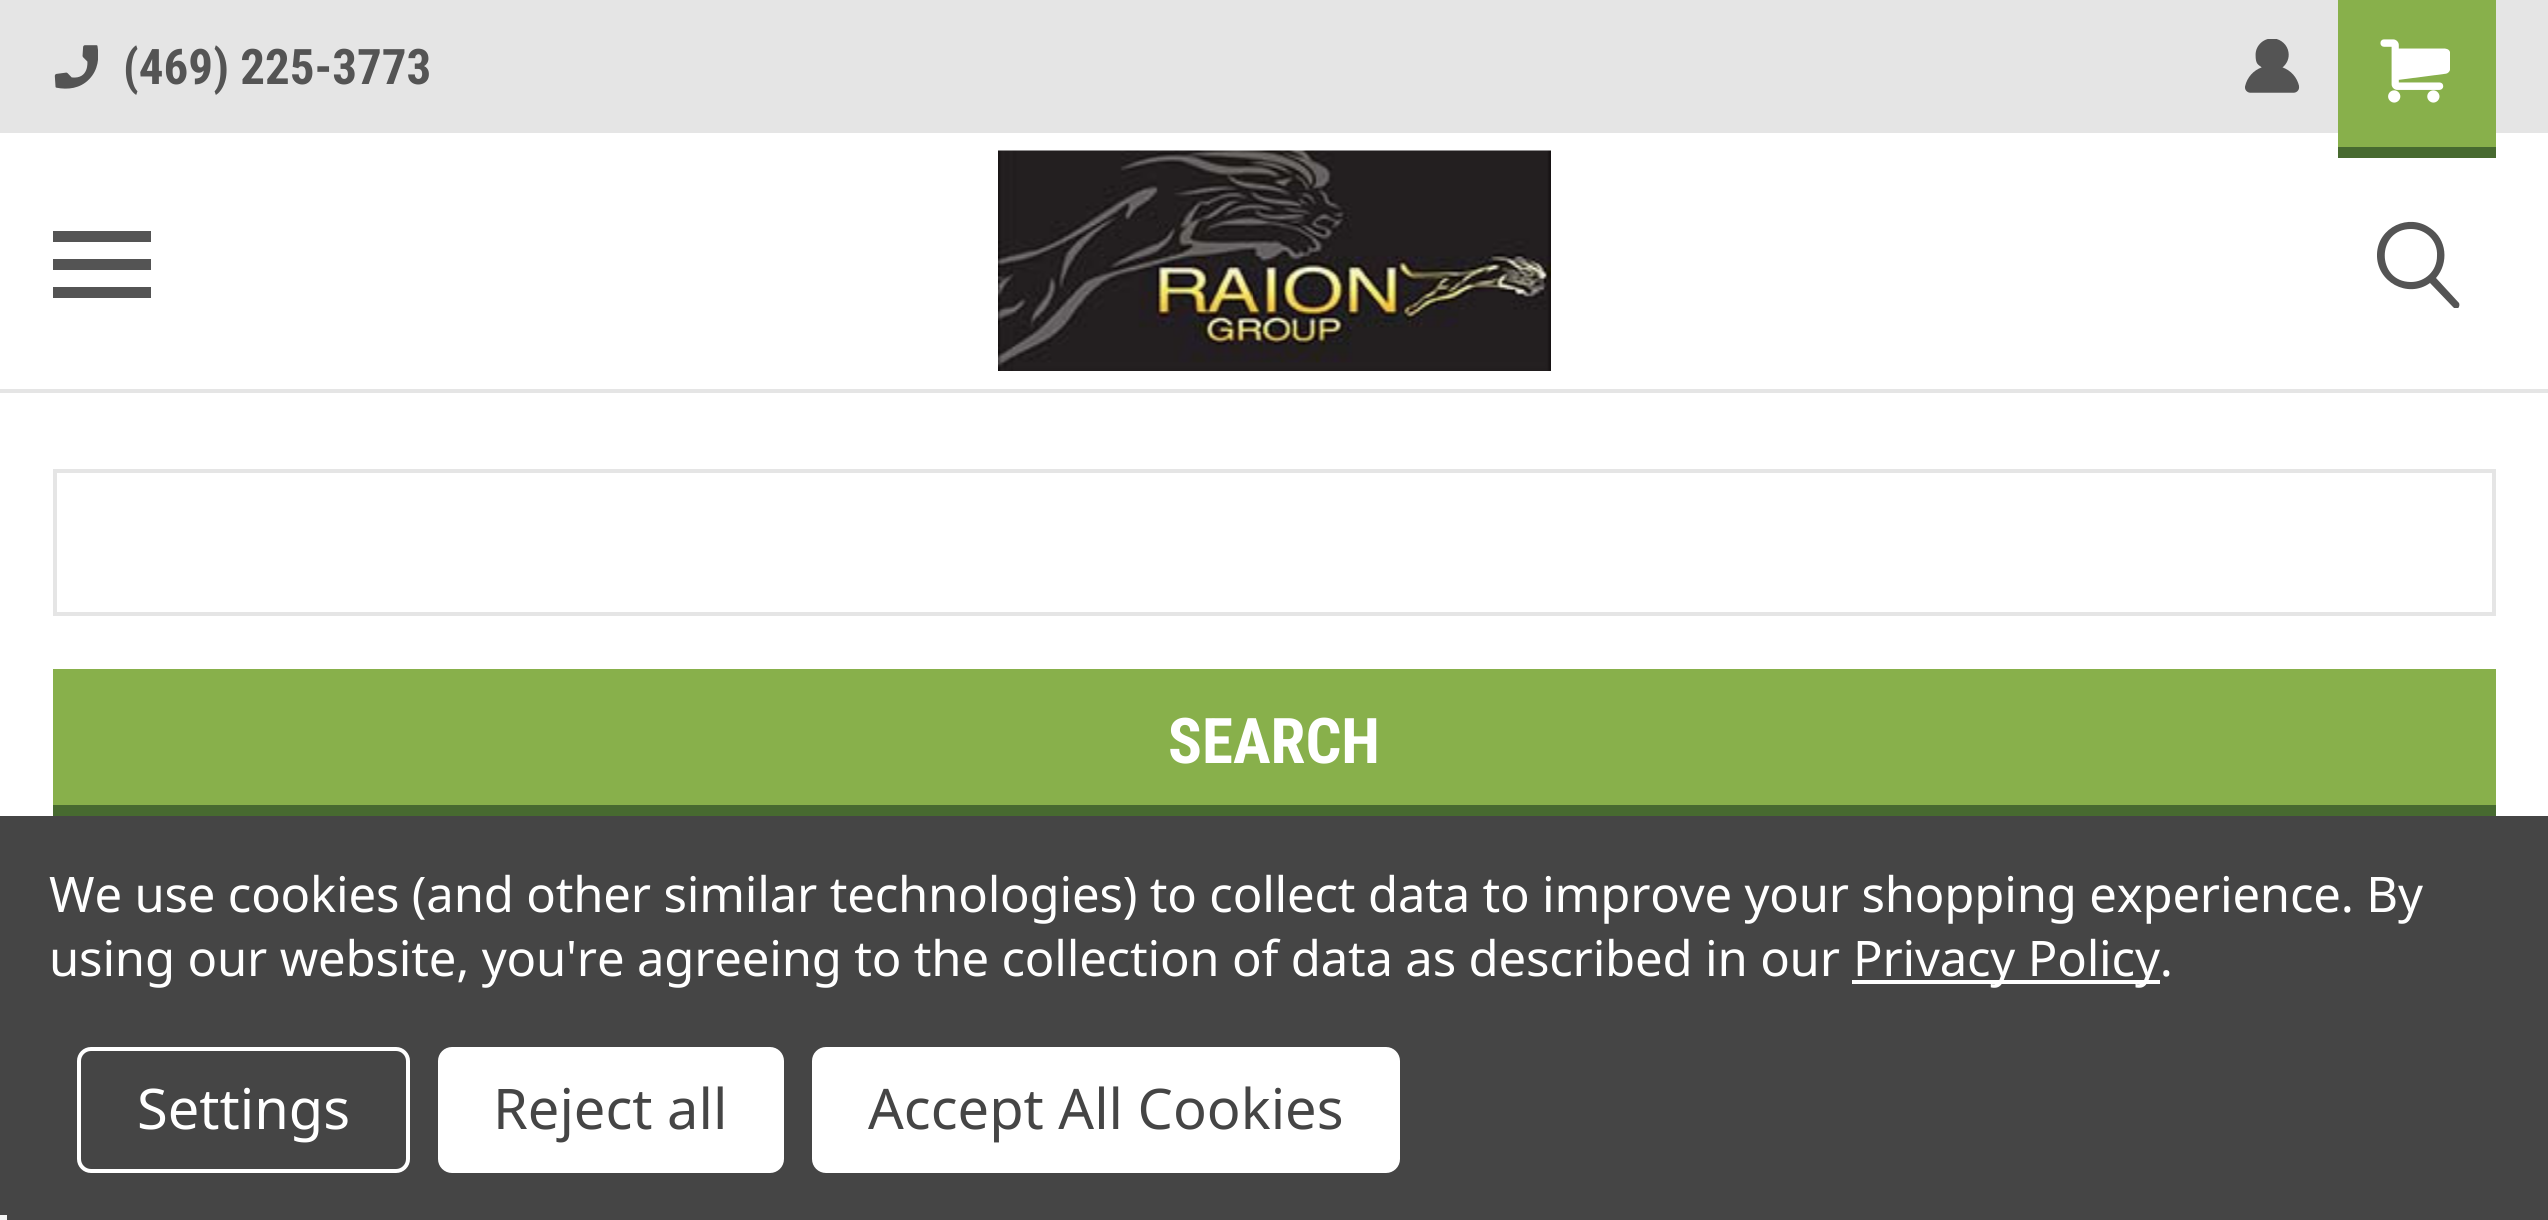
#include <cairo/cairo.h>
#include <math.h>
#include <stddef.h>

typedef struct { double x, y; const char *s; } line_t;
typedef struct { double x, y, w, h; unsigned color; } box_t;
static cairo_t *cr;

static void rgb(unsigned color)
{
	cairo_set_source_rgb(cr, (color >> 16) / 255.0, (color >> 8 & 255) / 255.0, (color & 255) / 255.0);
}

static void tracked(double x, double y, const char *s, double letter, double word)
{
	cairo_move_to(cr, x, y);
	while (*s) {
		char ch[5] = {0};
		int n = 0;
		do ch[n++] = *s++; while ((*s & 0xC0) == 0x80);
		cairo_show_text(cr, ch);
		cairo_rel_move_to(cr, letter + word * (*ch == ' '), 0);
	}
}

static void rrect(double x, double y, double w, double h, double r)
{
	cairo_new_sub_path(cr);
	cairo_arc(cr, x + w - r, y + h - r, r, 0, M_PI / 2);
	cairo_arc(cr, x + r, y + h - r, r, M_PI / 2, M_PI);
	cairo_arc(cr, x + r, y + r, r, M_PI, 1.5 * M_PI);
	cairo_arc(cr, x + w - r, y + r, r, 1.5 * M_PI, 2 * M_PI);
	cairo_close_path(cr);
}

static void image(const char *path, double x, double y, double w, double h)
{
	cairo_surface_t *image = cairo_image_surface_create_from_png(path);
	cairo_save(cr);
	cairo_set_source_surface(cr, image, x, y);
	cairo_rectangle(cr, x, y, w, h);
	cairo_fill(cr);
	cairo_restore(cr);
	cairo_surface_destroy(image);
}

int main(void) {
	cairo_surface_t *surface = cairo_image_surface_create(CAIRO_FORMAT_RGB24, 2548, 1220);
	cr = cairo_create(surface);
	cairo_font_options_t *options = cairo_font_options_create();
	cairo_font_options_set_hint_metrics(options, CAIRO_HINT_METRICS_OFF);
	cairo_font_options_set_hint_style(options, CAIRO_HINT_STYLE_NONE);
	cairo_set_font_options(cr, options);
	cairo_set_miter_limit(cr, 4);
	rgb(0xffffff);
	cairo_paint(cr);
	rgb(0xe5e5e5);
	cairo_rectangle(cr, 0, 389, 2548, 4);
	cairo_fill(cr);
	cairo_rectangle(cr, 0, 0, 2548, 133);
	cairo_fill(cr);
	image("img/1.png", 54, 45, 44, 44);
	image("img/2.png", 2245, 39, 55, 54);
	rgb(0x88b04b);
	cairo_rectangle(cr, 2338, 0, 158, 147);
	cairo_fill(cr);
	rgb(0x476a30);
	cairo_rectangle(cr, 2338, 147, 158, 11);
	cairo_fill(cr);
	image("img/3.png", 2380, 39, 70, 64);
	{
		static const box_t items[] = {
			{53, 259, 98, 11, 0x545454},
			{53, 231, 98, 11, 0x545454},
			{53, 287, 98, 11, 0x545454},
		};
		for (size_t i = 0; i < sizeof items / sizeof *items; i++) {
			rgb(items[i].color);
			cairo_rectangle(cr, items[i].x, items[i].y, items[i].w, items[i].h);
			cairo_fill(cr);
		}
	}
	image("img/4.png", 998, 150, 553, 221);
	cairo_save(cr);
	cairo_rectangle(cr, 2370, 217, 91, 91);
	cairo_clip(cr);
	cairo_new_path(cr);
	cairo_move_to(cr, 2456, 309);
	cairo_curve_to(cr, 2455, 309, 2454, 308, 2453, 307);
	cairo_line_to(cr, 2430, 283);
	cairo_curve_to(cr, 2408, 299, 2376, 282, 2377, 254);
	cairo_curve_to(cr, 2378, 227, 2409, 213, 2430, 228);
	cairo_curve_to(cr, 2447, 239, 2449, 263, 2436, 278);
	cairo_line_to(cr, 2459, 303);
	cairo_curve_to(cr, 2460, 305, 2459, 309, 2456, 309);
	cairo_close_path(cr);
	cairo_move_to(cr, 2411, 229);
	cairo_curve_to(cr, 2376, 229, 2376, 282, 2411, 282);
	cairo_curve_to(cr, 2425, 282, 2437, 271, 2437, 256);
	cairo_curve_to(cr, 2438, 241, 2426, 229, 2411, 229);
	cairo_close_path(cr);
	cairo_fill(cr);
	cairo_restore(cr);
	cairo_rectangle(cr, 55, 471, 2439, 143);
	rgb(0xe5e5e5);
	cairo_set_line_width(cr, 4);
	cairo_stroke(cr);
	{
		static const box_t items[] = {
			{53, 669, 2443, 136, 0x88b04b},
			{53, 805, 2443, 11, 0x476a30},
			{0, 816, 2548, 404, 0x454545},
			{1852, 980, 308, 4, 0xffffff},
		};
		for (size_t i = 0; i < sizeof items / sizeof *items; i++) {
			rgb(items[i].color);
			cairo_rectangle(cr, items[i].x, items[i].y, items[i].w, items[i].h);
			cairo_fill(cr);
		}
	}
	rrect(79, 1049, 329, 122, 12);
	cairo_stroke(cr);
	rrect(438, 1047, 346, 126, 14);
	cairo_fill(cr);
	rrect(812, 1047, 588, 126, 14);
	cairo_fill(cr);
	rgb(0xf5f5f5);
	cairo_rectangle(cr, 0, 1215, 7, 5);
	cairo_fill(cr);
	cairo_select_font_face(cr, "Roboto Condensed", CAIRO_FONT_SLANT_NORMAL, CAIRO_FONT_WEIGHT_BOLD);
	cairo_set_font_size(cr, 49);
	rgb(0x545454);
	cairo_move_to(cr, 123, 84);
	cairo_show_text(cr, "(469) 225-3773");
	cairo_set_font_size(cr, 63);
	rgb(0xffffff);
	cairo_move_to(cr, 1168, 763);
	cairo_show_text(cr, "SEARCH");
	cairo_select_font_face(cr, "Noto Sans", CAIRO_FONT_SLANT_NORMAL, CAIRO_FONT_WEIGHT_NORMAL);
	cairo_set_font_size(cr, 49);
	{
		static const line_t items[] = {
			{49, 912, "We use cookies (and other similar technologies) to collect data to improve your shopping experience. By"},
			{49, 976, "using our website, you're agreeing to the collection of data as described in our"},
			{1853, 976, "Privacy Policy."},
		};
		for (size_t i = 0; i < sizeof items / sizeof *items; i++) {
			tracked(items[i].x, items[i].y, items[i].s, -0.18, 0);
		}
	}
	cairo_set_font_size(cr, 56);
	cairo_move_to(cr, 137, 1129);
	cairo_show_text(cr, "Settings");
	rgb(0x454545);
	cairo_move_to(cr, 493, 1129);
	cairo_show_text(cr, "Reject all");
	cairo_move_to(cr, 868, 1129);
	cairo_show_text(cr, "Accept All Cookies");
	cairo_surface_write_to_png(surface, "page.png");
	cairo_font_options_destroy(options);
	cairo_destroy(cr);
	cairo_surface_destroy(surface);
	return 0;
}
